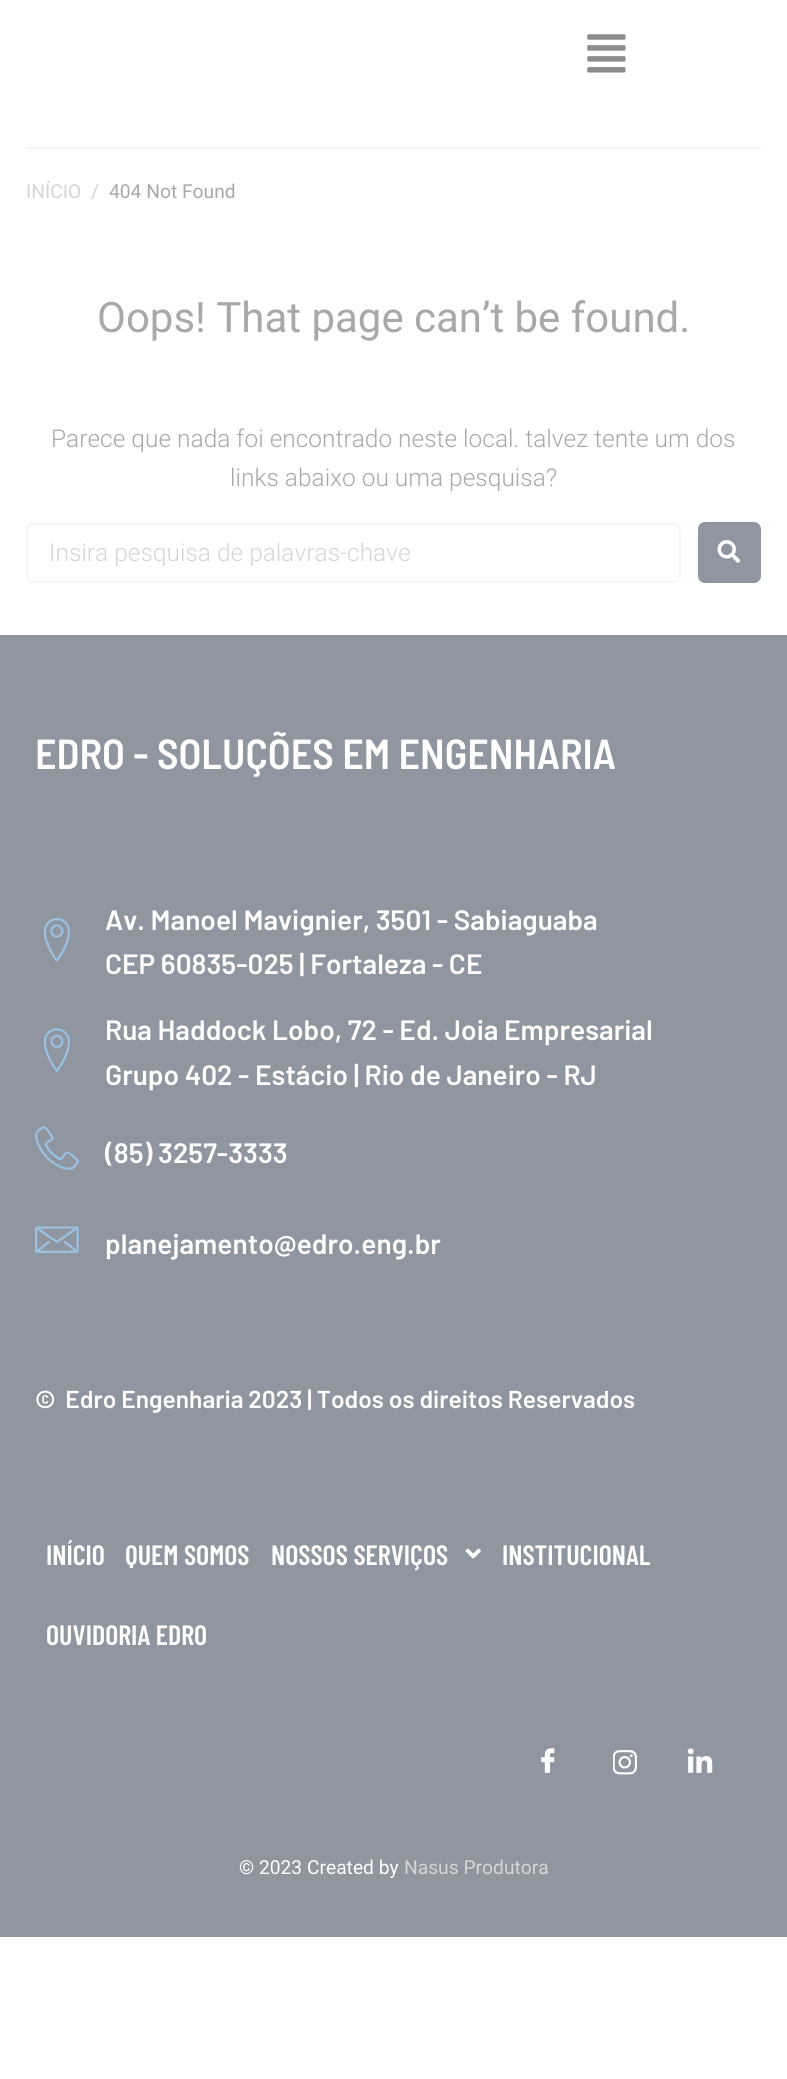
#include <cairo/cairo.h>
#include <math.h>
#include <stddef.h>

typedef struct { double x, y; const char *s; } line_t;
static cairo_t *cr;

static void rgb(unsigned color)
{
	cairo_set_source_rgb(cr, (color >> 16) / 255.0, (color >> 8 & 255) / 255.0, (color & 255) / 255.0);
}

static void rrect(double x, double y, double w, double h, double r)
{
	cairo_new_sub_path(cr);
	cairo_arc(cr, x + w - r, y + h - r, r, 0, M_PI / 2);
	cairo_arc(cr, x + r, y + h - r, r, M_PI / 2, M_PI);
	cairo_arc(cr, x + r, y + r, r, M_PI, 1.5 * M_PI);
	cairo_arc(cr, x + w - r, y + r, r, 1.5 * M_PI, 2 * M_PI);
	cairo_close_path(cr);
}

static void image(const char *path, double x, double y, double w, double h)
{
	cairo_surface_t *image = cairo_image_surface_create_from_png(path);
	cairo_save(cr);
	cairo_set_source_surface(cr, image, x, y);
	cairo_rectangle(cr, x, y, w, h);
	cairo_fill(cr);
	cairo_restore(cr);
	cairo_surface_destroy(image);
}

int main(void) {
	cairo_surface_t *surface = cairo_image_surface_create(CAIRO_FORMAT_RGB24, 787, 2079);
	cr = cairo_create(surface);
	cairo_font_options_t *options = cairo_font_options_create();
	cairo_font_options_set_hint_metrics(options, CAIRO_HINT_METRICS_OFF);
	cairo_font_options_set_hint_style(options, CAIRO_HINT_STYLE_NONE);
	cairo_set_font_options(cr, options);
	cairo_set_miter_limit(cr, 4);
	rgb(0xffffff);
	cairo_paint(cr);
	image("img/1.png", 587, 34, 39, 39);
	rgb(0xf6f6f7);
	cairo_rectangle(cr, 26, 147, 735, 2);
	cairo_fill(cr);
	rrect(27, 524, 653, 58, 6);
	cairo_stroke(cr);
	rgb(0x90969f);
	rrect(698, 522, 63, 61, 7);
	cairo_fill(cr);
	image("img/2.png", 717, 540, 24, 23);
	cairo_rectangle(cr, 0, 635, 787, 1302);
	cairo_fill(cr);
	image("img/3.png", 43, 918, 27, 44);
	image("img/4.png", 43, 1028, 27, 44);
	image("img/5.png", 35, 1126, 44, 44);
	image("img/6.png", 35, 1226, 44, 27);
	image("img/7.png", 465, 1548, 16, 11);
	image("img/8.png", 541, 1748, 14, 25);
	image("img/9.png", 613, 1750, 24, 25);
	image("img/10.png", 687, 1748, 26, 25);
	cairo_select_font_face(cr, "Roboto", CAIRO_FONT_SLANT_NORMAL, CAIRO_FONT_WEIGHT_NORMAL);
	cairo_set_font_size(cr, 19.25);
	rgb(0xd5d5d6);
	cairo_move_to(cr, 26, 198);
	cairo_show_text(cr, "INÍCIO");
	cairo_move_to(cr, 91, 198);
	cairo_show_text(cr, "/");
	rgb(0xa7a8aa);
	cairo_move_to(cr, 109, 198);
	cairo_show_text(cr, "404 Not Found");
	cairo_set_font_size(cr, 42);
	cairo_move_to(cr, 97, 332);
	cairo_show_text(cr, "Oops! That page can’t be found.");
	cairo_select_font_face(cr, "Roboto Light", CAIRO_FONT_SLANT_NORMAL, CAIRO_FONT_WEIGHT_NORMAL);
	cairo_set_font_size(cr, 24.5);
	cairo_move_to(cr, 51, 447);
	cairo_show_text(cr, "Parece que nada foi encontrado neste local. talvez tente um dos");
	cairo_move_to(cr, 230, 486);
	cairo_show_text(cr, "links abaixo ou uma pesquisa?");
	rgb(0xd5d5d6);
	cairo_move_to(cr, 49, 561);
	cairo_show_text(cr, "Insira pesquisa de palavras-chave");
	cairo_select_font_face(cr, "Barlow Semi Condensed SemiBold", CAIRO_FONT_SLANT_NORMAL, CAIRO_FONT_WEIGHT_NORMAL);
	cairo_set_font_size(cr, 42);
	rgb(0xffffff);
	cairo_move_to(cr, 35, 769);
	cairo_show_text(cr, "EDRO - SOLUÇÕES EM ENGENHARIA");
	cairo_select_font_face(cr, "Barlow SemiBold", CAIRO_FONT_SLANT_NORMAL, CAIRO_FONT_WEIGHT_NORMAL);
	cairo_set_font_size(cr, 28);
	{
		static const line_t items[] = {
			{105, 930, "Av. Manoel Mavignier, 3501 - Sabiaguaba"},
			{105, 974, "CEP 60835-025 | Fortaleza - CE"},
			{105, 1040, "Rua Haddock Lobo, 72 - Ed. Joia Empresarial"},
			{105, 1085, "Grupo 402 - Estácio | Rio de Janeiro - RJ"},
			{105, 1163, "(85) 3257-3333"},
			{105, 1254, "planejamento@edro.eng.br"},
		};
		for (size_t i = 0; i < sizeof items / sizeof *items; i++) {
			cairo_move_to(cr, items[i].x, items[i].y);
			cairo_show_text(cr, items[i].s);
		}
	}
	cairo_set_font_size(cr, 24.5);
	cairo_move_to(cr, 35, 1408);
	cairo_show_text(cr, "©  Edro Engenharia 2023 | Todos os direitos Reservados");
	cairo_select_font_face(cr, "Barlow Condensed SemiBold", CAIRO_FONT_SLANT_NORMAL, CAIRO_FONT_WEIGHT_NORMAL);
	cairo_set_font_size(cr, 28);
	{
		static const line_t items[] = {
			{46, 1565, "INÍCIO"},
			{125, 1565, "QUEM SOMOS"},
			{271, 1565, "NOSSOS SERVIÇOS"},
			{502, 1565, "INSTITUCIONAL"},
			{46, 1645, "OUVIDORIA EDRO"},
		};
		for (size_t i = 0; i < sizeof items / sizeof *items; i++) {
			cairo_move_to(cr, items[i].x, items[i].y);
			cairo_show_text(cr, items[i].s);
		}
	}
	cairo_select_font_face(cr, "Roboto", CAIRO_FONT_SLANT_NORMAL, CAIRO_FONT_WEIGHT_NORMAL);
	cairo_set_font_size(cr, 19.25);
	cairo_move_to(cr, 239, 1874);
	cairo_show_text(cr, "© 2023 Created by");
	rgb(0xd5d5d6);
	cairo_move_to(cr, 404, 1874);
	cairo_show_text(cr, "Nasus Produtora");
	cairo_surface_write_to_png(surface, "page.png");
	cairo_font_options_destroy(options);
	cairo_destroy(cr);
	cairo_surface_destroy(surface);
	return 0;
}
